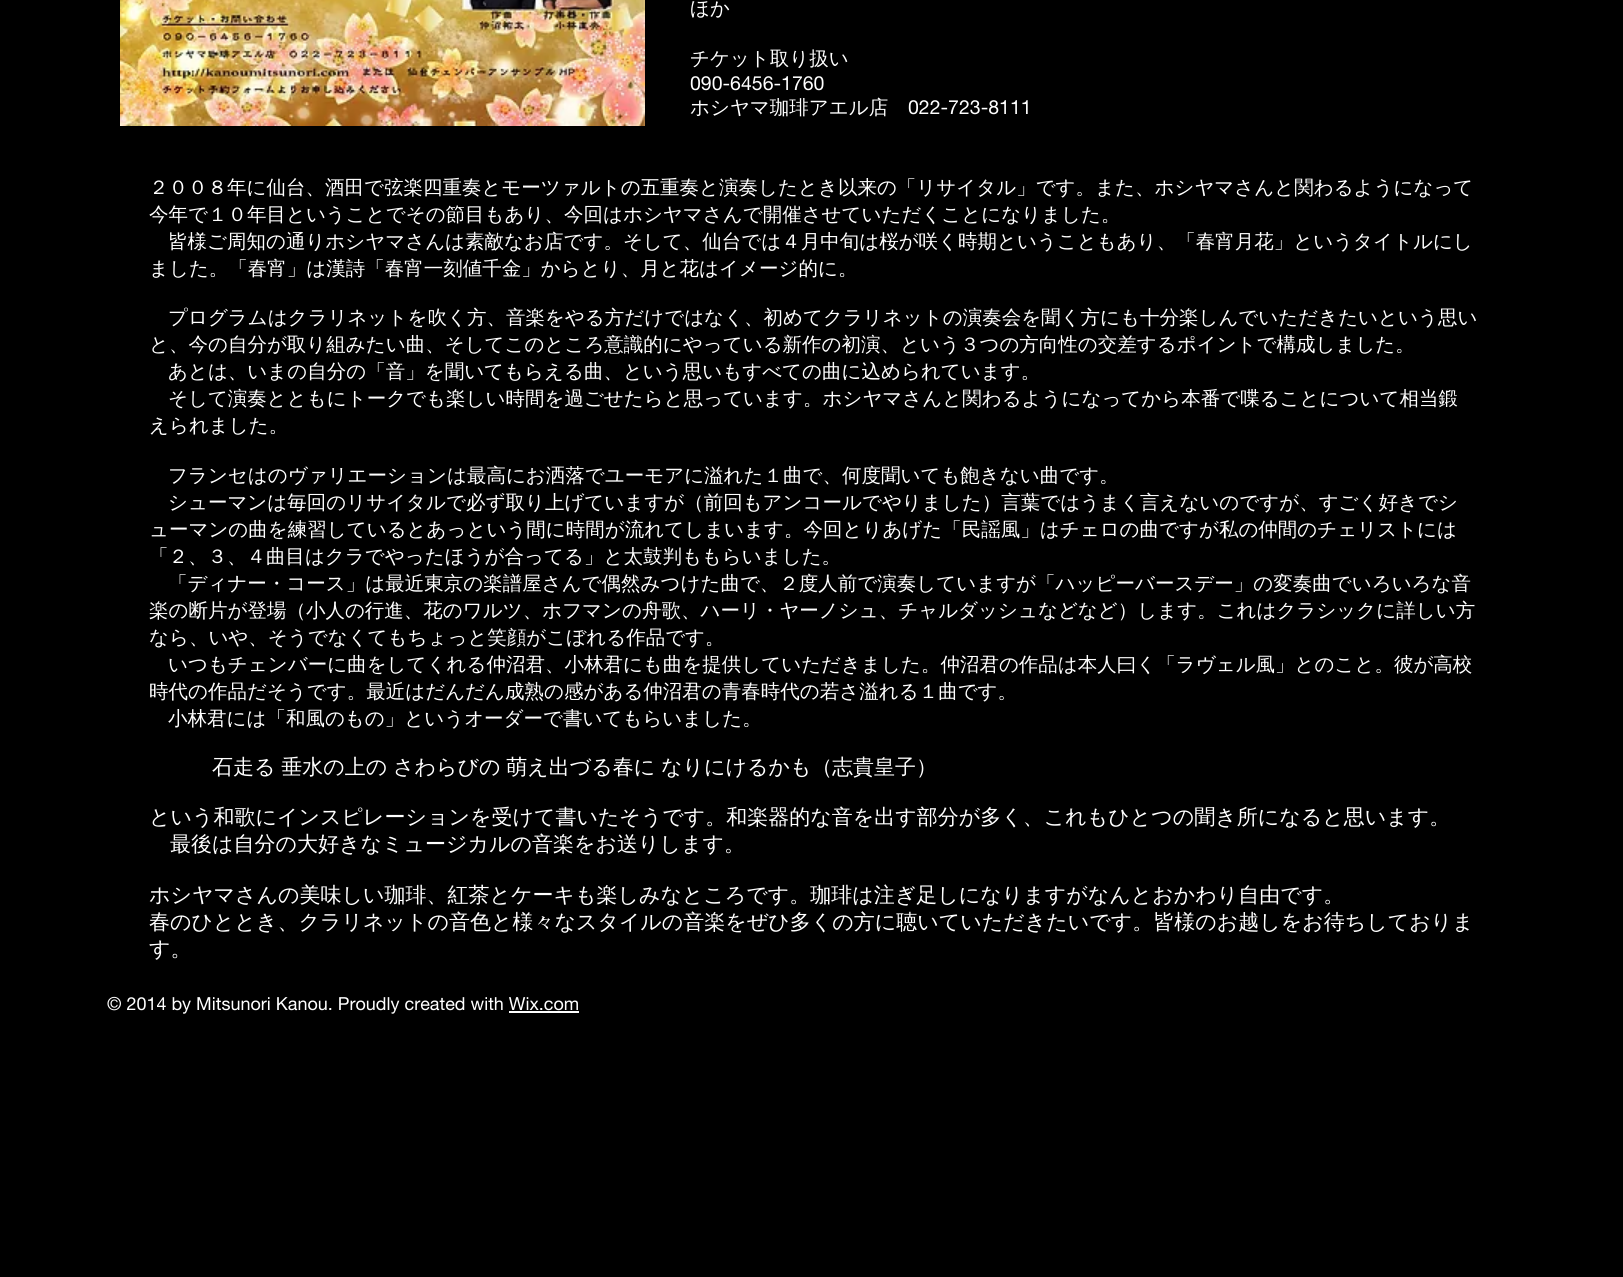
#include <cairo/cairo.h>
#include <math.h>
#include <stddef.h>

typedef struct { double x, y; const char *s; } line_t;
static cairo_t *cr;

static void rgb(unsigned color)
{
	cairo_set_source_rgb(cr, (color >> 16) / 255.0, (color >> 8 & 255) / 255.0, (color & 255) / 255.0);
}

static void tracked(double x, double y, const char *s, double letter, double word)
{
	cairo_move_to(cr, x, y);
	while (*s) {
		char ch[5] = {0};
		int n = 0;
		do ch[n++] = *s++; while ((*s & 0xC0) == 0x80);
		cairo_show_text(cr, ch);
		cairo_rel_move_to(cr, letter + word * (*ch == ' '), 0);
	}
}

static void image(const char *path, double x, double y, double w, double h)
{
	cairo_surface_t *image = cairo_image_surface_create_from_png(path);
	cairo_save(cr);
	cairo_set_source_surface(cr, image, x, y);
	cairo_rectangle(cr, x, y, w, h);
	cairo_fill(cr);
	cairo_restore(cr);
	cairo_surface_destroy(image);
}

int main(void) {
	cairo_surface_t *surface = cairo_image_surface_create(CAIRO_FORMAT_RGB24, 1623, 1277);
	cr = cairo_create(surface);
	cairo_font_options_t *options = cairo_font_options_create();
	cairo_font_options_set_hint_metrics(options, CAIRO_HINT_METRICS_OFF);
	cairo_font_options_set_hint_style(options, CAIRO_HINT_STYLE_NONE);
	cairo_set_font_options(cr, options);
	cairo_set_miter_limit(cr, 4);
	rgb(0x000000);
	cairo_paint(cr);
	image("img/1.png", 120, 0, 525, 126);
	rgb(0xffffff);
	cairo_rectangle(cr, 509, 1011, 70, 2);
	cairo_fill(cr);
	cairo_select_font_face(cr, "WenQuanYi Zen Hei Medium", CAIRO_FONT_SLANT_NORMAL, CAIRO_FONT_WEIGHT_NORMAL);
	cairo_set_font_size(cr, 19.5);
	cairo_move_to(cr, 690, 15);
	cairo_show_text(cr, "ほか");
	cairo_move_to(cr, 690, 65);
	cairo_show_text(cr, "チケット取り扱い");
	cairo_select_font_face(cr, "helvetica neue", CAIRO_FONT_SLANT_NORMAL, CAIRO_FONT_WEIGHT_NORMAL);
	cairo_move_to(cr, 690, 90);
	cairo_show_text(cr, "090-6456-1760");
	cairo_select_font_face(cr, "WenQuanYi Zen Hei Medium", CAIRO_FONT_SLANT_NORMAL, CAIRO_FONT_WEIGHT_NORMAL);
	cairo_move_to(cr, 690, 114);
	cairo_show_text(cr, "ホシヤマ珈琲アエル店");
	cairo_select_font_face(cr, "helvetica neue", CAIRO_FONT_SLANT_NORMAL, CAIRO_FONT_WEIGHT_NORMAL);
	cairo_move_to(cr, 908, 114);
	cairo_show_text(cr, "022-723-8111");
	cairo_select_font_face(cr, "WenQuanYi Zen Hei Medium", CAIRO_FONT_SLANT_NORMAL, CAIRO_FONT_WEIGHT_NORMAL);
	{
		static const line_t items[] = {
			{149, 194, "２００８年に仙台、酒田で弦楽四重奏とモーツァルトの五重奏と演奏したとき以来の「リサイタル」です。また、ホシヤマさんと関わるようになって"},
			{149, 221, "今年で１０年目ということでその節目もあり、今回はホシヤマさんで開催させていただくことになりました。"},
			{168, 248, "皆様ご周知の通りホシヤマさんは素敵なお店です。そして、仙台では４月中旬は桜が咲く時期ということもあり、「春宵月花」というタイトルにし"},
			{149, 275, "ました。「春宵」は漢詩「春宵一刻値千金」からとり、月と花はイメージ的に。"},
			{168, 324, "プログラムはクラリネットを吹く方、音楽をやる方だけではなく、初めてクラリネットの演奏会を聞く方にも十分楽しんでいただきたいという思い"},
			{149, 351, "と、今の自分が取り組みたい曲、そしてこのところ意識的にやっている新作の初演、という３つの方向性の交差するポイントで構成しました。"},
			{168, 378, "あとは、いまの自分の「音」を聞いてもらえる曲、という思いもすべての曲に込められています。"},
			{168, 405, "そして演奏とともにトークでも楽しい時間を過ごせたらと思っています。ホシヤマさんと関わるようになってから本番で喋ることについて相当鍛"},
			{149, 432, "えられました。"},
			{168, 482, "フランセはのヴァリエーションは最高にお洒落でユーモアに溢れた１曲で、何度聞いても飽きない曲です。"},
			{168, 509, "シューマンは毎回のリサイタルで必ず取り上げていますが（前回もアンコールでやりました）言葉ではうまく言えないのですが、すごく好きでシ"},
			{149, 536, "ューマンの曲を練習しているとあっという間に時間が流れてしまいます。今回とりあげた「民謡風」はチェロの曲ですが私の仲間のチェリストには"},
			{149, 563, "「２、３、４曲目はクラでやったほうが合ってる」と太鼓判ももらいました。"},
			{168, 590, "「ディナー・コース」は最近東京の楽譜屋さんで偶然みつけた曲で、２度人前で演奏していますが「ハッピーバースデー」の変奏曲でいろいろな音"},
			{149, 617, "楽の断片が登場（小人の行進、花のワルツ、ホフマンの舟歌、ハーリ・ヤーノシュ、チャルダッシュなどなど）します。これはクラシックに詳しい方"},
			{149, 644, "なら、いや、そうでなくてもちょっと笑顔がこぼれる作品です。"},
			{168, 671, "いつもチェンバーに曲をしてくれる仲沼君、小林君にも曲を提供していただきました。仲沼君の作品は本人曰く「ラヴェル風」とのこと。彼が高校"},
			{149, 698, "時代の作品だそうです。最近はだんだん成熟の感がある仲沼君の青春時代の若さ溢れる１曲です。"},
			{168, 725, "小林君には「和風のもの」というオーダーで書いてもらいました。"},
		};
		for (size_t i = 0; i < sizeof items / sizeof *items; i++) {
			cairo_move_to(cr, items[i].x, items[i].y);
			cairo_show_text(cr, items[i].s);
		}
	}
	cairo_set_font_size(cr, 21);
	tracked(212, 774, "石走る 垂水の上の さわらびの 萌え出づる春に なりにけるかも（", 0, -0.5);
	{
		static const line_t items[] = {
			{832, 774, "志貴皇子）"},
			{149, 824, "という和歌にインスピレーションを受けて書いたそうです。和楽器的な音を出す部分が多く、これもひとつの聞き所になると思います。"},
			{170, 851, "最後は自分の大好きなミュージカルの音楽をお送りします。"},
			{149, 902, "ホシヤマさんの美味しい珈琲、紅茶とケーキも楽しみなところです。珈琲は注ぎ足しになりますがなんとおかわり自由です。"},
			{149, 929, "春のひととき、クラリネットの音色と様々なスタイルの音楽をぜひ多くの方に聴いていただきたいです。皆様のお越しをお待ちしておりま"},
			{149, 956, "す。"},
		};
		for (size_t i = 0; i < sizeof items / sizeof *items; i++) {
			cairo_move_to(cr, items[i].x, items[i].y);
			cairo_show_text(cr, items[i].s);
		}
	}
	cairo_select_font_face(cr, "helvetica neue", CAIRO_FONT_SLANT_NORMAL, CAIRO_FONT_WEIGHT_NORMAL);
	cairo_set_font_size(cr, 18);
	cairo_move_to(cr, 107, 1010);
	cairo_show_text(cr, "© 2014 by Mitsunori Kanou. Proudly created with Wix.com");
	cairo_surface_write_to_png(surface, "page.png");
	cairo_font_options_destroy(options);
	cairo_destroy(cr);
	cairo_surface_destroy(surface);
	return 0;
}
